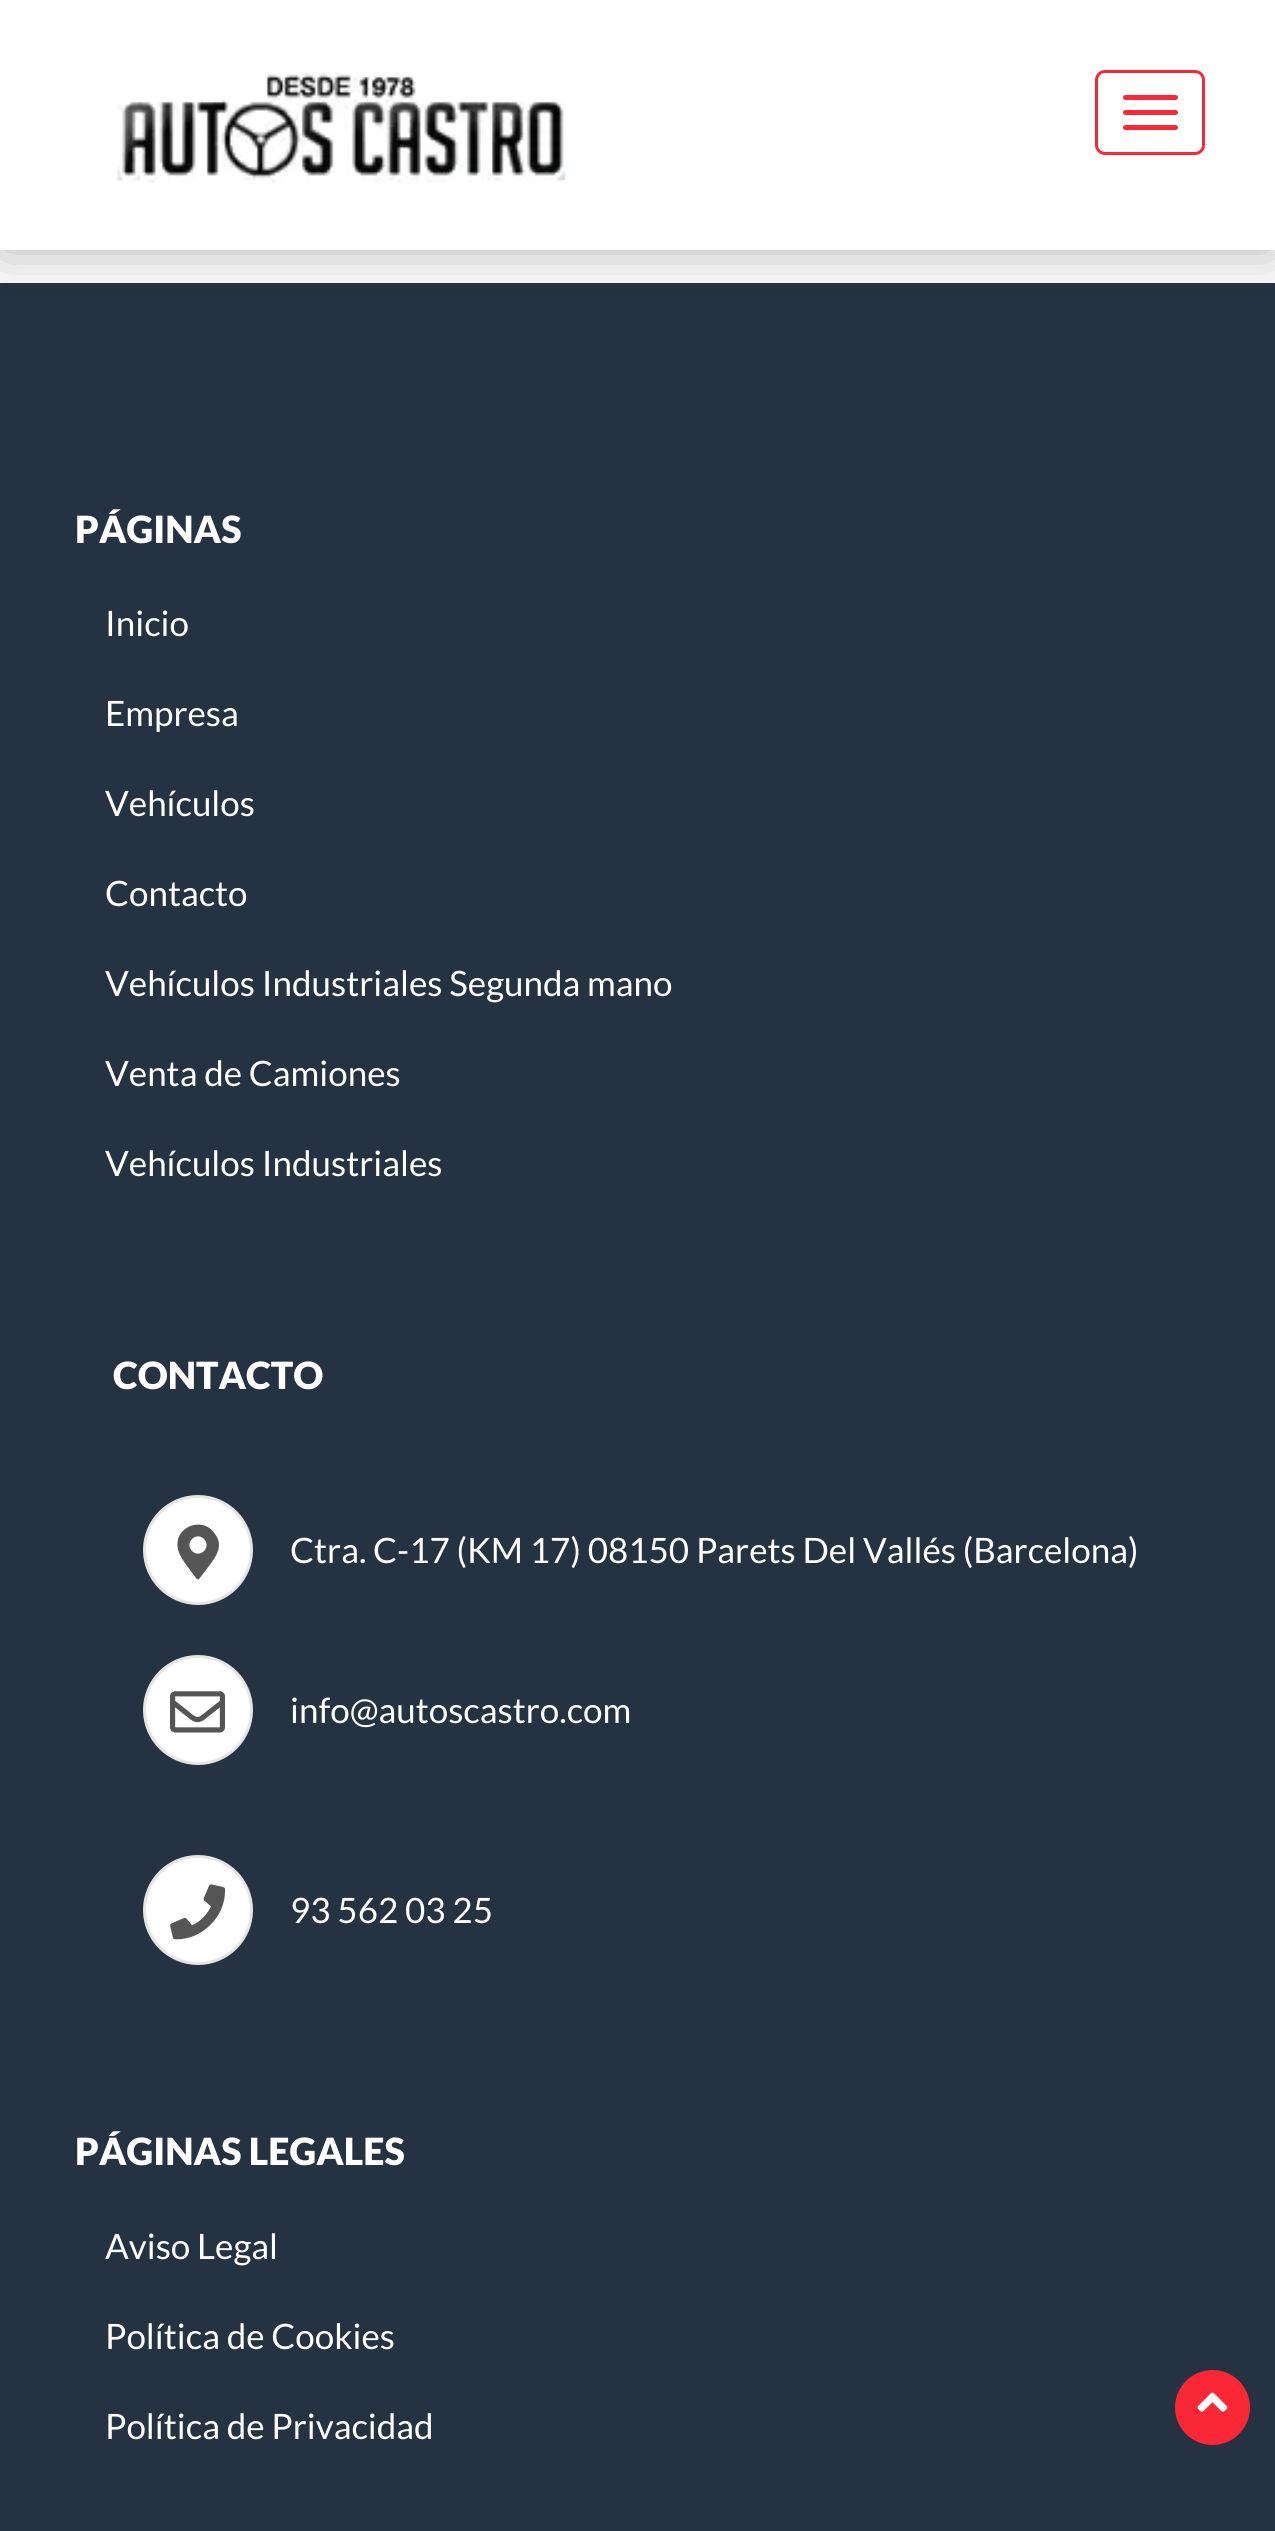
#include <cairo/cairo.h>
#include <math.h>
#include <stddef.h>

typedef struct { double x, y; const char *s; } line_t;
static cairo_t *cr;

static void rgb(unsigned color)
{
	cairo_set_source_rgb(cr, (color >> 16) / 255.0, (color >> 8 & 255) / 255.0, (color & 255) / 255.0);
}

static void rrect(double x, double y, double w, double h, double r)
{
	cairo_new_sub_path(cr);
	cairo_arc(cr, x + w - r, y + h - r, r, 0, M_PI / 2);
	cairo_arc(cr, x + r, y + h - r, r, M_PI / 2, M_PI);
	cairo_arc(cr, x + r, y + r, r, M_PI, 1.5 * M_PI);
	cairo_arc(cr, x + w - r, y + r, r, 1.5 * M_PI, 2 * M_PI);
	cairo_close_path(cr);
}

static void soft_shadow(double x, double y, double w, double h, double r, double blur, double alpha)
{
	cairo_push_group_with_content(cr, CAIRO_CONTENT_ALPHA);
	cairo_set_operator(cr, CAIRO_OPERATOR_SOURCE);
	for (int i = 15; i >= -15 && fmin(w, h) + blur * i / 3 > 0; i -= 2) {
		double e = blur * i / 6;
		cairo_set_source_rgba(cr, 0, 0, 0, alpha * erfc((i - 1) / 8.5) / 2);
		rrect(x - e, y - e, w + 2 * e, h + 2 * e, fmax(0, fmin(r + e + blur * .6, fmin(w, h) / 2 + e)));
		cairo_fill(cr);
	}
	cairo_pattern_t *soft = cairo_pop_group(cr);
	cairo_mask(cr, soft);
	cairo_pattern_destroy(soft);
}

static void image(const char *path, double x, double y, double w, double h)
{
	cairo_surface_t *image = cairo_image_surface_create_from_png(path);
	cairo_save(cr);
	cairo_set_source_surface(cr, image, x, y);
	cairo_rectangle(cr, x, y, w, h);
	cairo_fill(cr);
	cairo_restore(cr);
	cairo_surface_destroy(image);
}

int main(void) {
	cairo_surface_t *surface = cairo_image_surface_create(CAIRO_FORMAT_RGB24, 1275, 2531);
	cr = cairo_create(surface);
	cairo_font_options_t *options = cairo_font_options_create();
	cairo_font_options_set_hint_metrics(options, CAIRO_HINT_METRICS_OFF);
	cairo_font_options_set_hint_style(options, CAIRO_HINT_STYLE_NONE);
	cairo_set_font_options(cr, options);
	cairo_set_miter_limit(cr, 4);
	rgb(0xffffff);
	cairo_paint(cr);
	rgb(0x253241);
	cairo_rectangle(cr, 0, 283, 1275, 2248);
	cairo_fill(cr);
	cairo_save(cr);
	cairo_rectangle(cr, 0, 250, 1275, 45);
	cairo_clip(cr);
	rgb(0x000000);
	soft_shadow(0, 0, 1275, 250, 0, 30, 0.3);
	cairo_restore(cr);
	image("img/1.png", 117, 72, 449, 111);
	rrect(1096.5, 71.5, 107, 82, 8.5);
	rgb(0xfa2837);
	cairo_set_line_width(cr, 3);
	cairo_stroke(cr);
	rrect(1123, 95, 55, 5, 2.5);
	cairo_fill(cr);
	rrect(1123, 110, 55, 5, 2.5);
	cairo_fill(cr);
	rrect(1123, 125, 55, 5, 2.5);
	cairo_fill(cr);
	rgb(0xffffff);
	cairo_arc(cr, 198, 1550, 53.5, 0, 2 * M_PI);
	cairo_fill_preserve(cr);
	rgb(0xe6e5e5);
	cairo_stroke(cr);
	rgb(0x555555);
	cairo_new_path(cr);
	cairo_move_to(cr, 196, 1578);
	cairo_curve_to(cr, 191, 1571, 179, 1557, 178, 1549);
	cairo_curve_to(cr, 173, 1527, 203, 1515, 215, 1534);
	cairo_curve_to(cr, 225, 1547, 214, 1559, 206, 1570);
	cairo_line_to(cr, 199, 1579);
	cairo_curve_to(cr, 198, 1580, 197, 1579, 196, 1578);
	cairo_close_path(cr);
	cairo_move_to(cr, 192, 1551);
	cairo_curve_to(cr, 200, 1559, 212, 1547, 204, 1539);
	cairo_curve_to(cr, 196, 1531, 184, 1543, 192, 1551);
	cairo_close_path(cr);
	cairo_fill(cr);
	rgb(0xffffff);
	cairo_arc(cr, 198, 1710, 53.5, 0, 2 * M_PI);
	cairo_fill_preserve(cr);
	rgb(0xe6e5e5);
	cairo_stroke(cr);
	image("img/2.png", 170, 1691, 55, 42);
	rgb(0xffffff);
	cairo_arc(cr, 198, 1910, 53.5, 0, 2 * M_PI);
	cairo_fill_preserve(cr);
	rgb(0xe6e5e5);
	cairo_stroke(cr);
	image("img/3.png", 170, 1884, 56, 56);
	rgb(0xfa2837);
	cairo_arc(cr, 1212.5, 2407.5, 37.5, 0, 2 * M_PI);
	cairo_fill(cr);
	image("img/4.png", 1197, 2392, 31, 20);
	cairo_select_font_face(cr, "Lato Black", CAIRO_FONT_SLANT_NORMAL, CAIRO_FONT_WEIGHT_NORMAL);
	cairo_set_font_size(cr, 37.5);
	rgb(0xffffff);
	cairo_move_to(cr, 75, 543);
	cairo_show_text(cr, "PÁGINAS");
	cairo_select_font_face(cr, "Lato", CAIRO_FONT_SLANT_NORMAL, CAIRO_FONT_WEIGHT_NORMAL);
	cairo_set_font_size(cr, 35);
	{
		static const line_t items[] = {
			{105, 636, "Inicio"},
			{105, 726, "Empresa"},
			{105, 816, "Vehículos"},
			{105, 906, "Contacto"},
			{105, 996, "Vehículos Industriales Segunda mano"},
			{105, 1086, "Venta de Camiones"},
			{105, 1176, "Vehículos Industriales"},
		};
		for (size_t i = 0; i < sizeof items / sizeof *items; i++) {
			cairo_move_to(cr, items[i].x, items[i].y);
			cairo_show_text(cr, items[i].s);
		}
	}
	cairo_select_font_face(cr, "Lato Black", CAIRO_FONT_SLANT_NORMAL, CAIRO_FONT_WEIGHT_NORMAL);
	cairo_set_font_size(cr, 37.5);
	cairo_move_to(cr, 113, 1389);
	cairo_show_text(cr, "CONTACTO");
	cairo_select_font_face(cr, "Lato", CAIRO_FONT_SLANT_NORMAL, CAIRO_FONT_WEIGHT_NORMAL);
	cairo_set_font_size(cr, 35);
	{
		static const line_t items[] = {
			{290, 1563, "Ctra. C-17 (KM 17) 08150 Parets Del Vallés (Barcelona)"},
			{290, 1723, "info@autoscastro.com"},
			{290, 1923, "93 562 03 25"},
		};
		for (size_t i = 0; i < sizeof items / sizeof *items; i++) {
			cairo_move_to(cr, items[i].x, items[i].y);
			cairo_show_text(cr, items[i].s);
		}
	}
	cairo_select_font_face(cr, "Lato Black", CAIRO_FONT_SLANT_NORMAL, CAIRO_FONT_WEIGHT_NORMAL);
	cairo_set_font_size(cr, 37.5);
	cairo_move_to(cr, 75, 2165);
	cairo_show_text(cr, "PÁGINAS LEGALES");
	cairo_select_font_face(cr, "Lato", CAIRO_FONT_SLANT_NORMAL, CAIRO_FONT_WEIGHT_NORMAL);
	cairo_set_font_size(cr, 35);
	{
		static const line_t items[] = {
			{105, 2259, "Aviso Legal"},
			{105, 2349, "Política de Cookies"},
			{105, 2439, "Política de Privacidad"},
		};
		for (size_t i = 0; i < sizeof items / sizeof *items; i++) {
			cairo_move_to(cr, items[i].x, items[i].y);
			cairo_show_text(cr, items[i].s);
		}
	}
	cairo_surface_write_to_png(surface, "page.png");
	cairo_font_options_destroy(options);
	cairo_destroy(cr);
	cairo_surface_destroy(surface);
	return 0;
}
